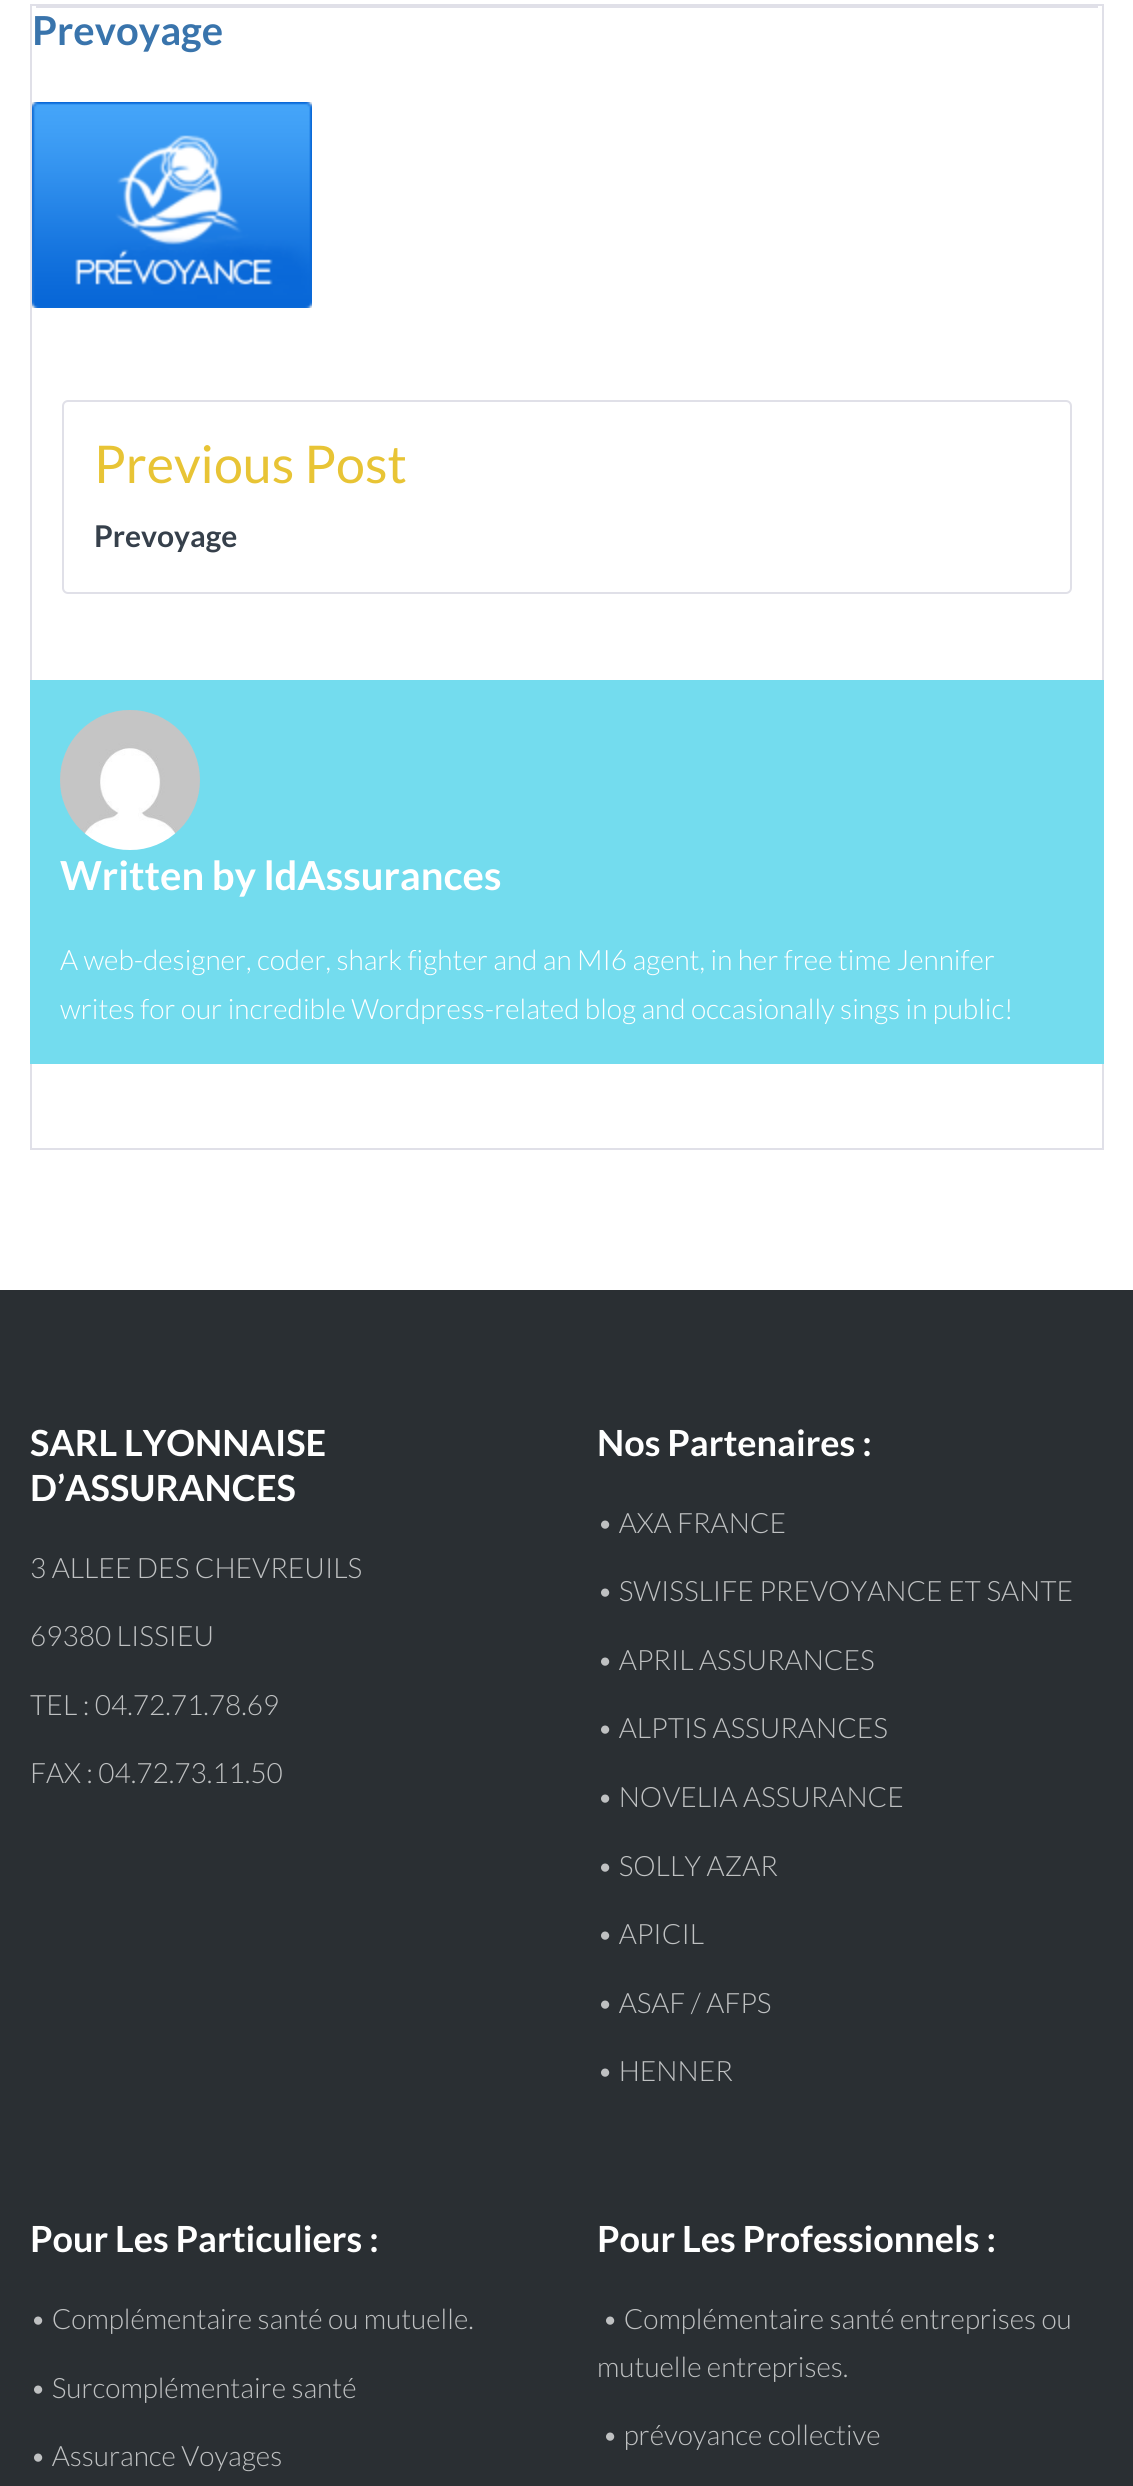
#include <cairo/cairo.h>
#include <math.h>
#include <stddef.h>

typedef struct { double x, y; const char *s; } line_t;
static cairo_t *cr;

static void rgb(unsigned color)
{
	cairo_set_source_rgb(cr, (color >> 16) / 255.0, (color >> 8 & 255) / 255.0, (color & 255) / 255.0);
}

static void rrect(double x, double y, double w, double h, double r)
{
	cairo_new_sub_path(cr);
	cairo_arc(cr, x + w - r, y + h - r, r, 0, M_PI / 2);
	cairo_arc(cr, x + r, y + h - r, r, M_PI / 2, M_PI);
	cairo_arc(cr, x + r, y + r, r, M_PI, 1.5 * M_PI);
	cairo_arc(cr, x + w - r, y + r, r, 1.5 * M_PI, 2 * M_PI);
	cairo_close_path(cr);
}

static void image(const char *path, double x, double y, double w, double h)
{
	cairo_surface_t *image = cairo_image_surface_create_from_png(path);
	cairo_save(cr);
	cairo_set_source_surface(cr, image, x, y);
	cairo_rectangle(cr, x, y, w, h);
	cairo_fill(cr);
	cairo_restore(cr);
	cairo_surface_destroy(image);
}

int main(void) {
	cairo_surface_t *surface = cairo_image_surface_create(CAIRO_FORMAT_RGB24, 1133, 2486);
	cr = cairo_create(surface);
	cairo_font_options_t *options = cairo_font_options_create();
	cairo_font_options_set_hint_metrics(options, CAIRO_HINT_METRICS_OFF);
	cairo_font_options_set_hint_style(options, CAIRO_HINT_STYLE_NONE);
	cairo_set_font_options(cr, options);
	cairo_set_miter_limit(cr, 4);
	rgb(0xffffff);
	cairo_paint(cr);
	cairo_rectangle(cr, 31, 5, 1072, 1144);
	rgb(0xe0e0e8);
	cairo_stroke(cr);
	cairo_rectangle(cr, 36, 6, 1062, 2);
	cairo_fill(cr);
	image("img/1.png", 32, 102, 280, 206);
	rrect(63, 401, 1008, 192, 5);
	cairo_stroke(cr);
	rgb(0x73dcee);
	cairo_rectangle(cr, 30, 680, 1074, 384);
	cairo_fill(cr);
	image("img/2.png", 60, 710, 140, 140);
	rgb(0x2a2f33);
	cairo_rectangle(cr, 0, 1290, 1133, 1196);
	cairo_fill(cr);
	cairo_select_font_face(cr, "Lato", CAIRO_FONT_SLANT_NORMAL, CAIRO_FONT_WEIGHT_BOLD);
	cairo_set_font_size(cr, 40);
	rgb(0x3974ac);
	cairo_move_to(cr, 32, 45);
	cairo_show_text(cr, "Prevoyage");
	cairo_select_font_face(cr, "Lato", CAIRO_FONT_SLANT_NORMAL, CAIRO_FONT_WEIGHT_NORMAL);
	cairo_set_font_size(cr, 52);
	rgb(0xe8c435);
	cairo_move_to(cr, 94, 483);
	cairo_show_text(cr, "Previous Post");
	cairo_select_font_face(cr, "Lato", CAIRO_FONT_SLANT_NORMAL, CAIRO_FONT_WEIGHT_BOLD);
	cairo_set_font_size(cr, 30);
	rgb(0x36404b);
	cairo_move_to(cr, 94, 547);
	cairo_show_text(cr, "Prevoyage");
	cairo_set_font_size(cr, 40);
	rgb(0xffffff);
	cairo_move_to(cr, 60, 890);
	cairo_show_text(cr, "Written by ldAssurances");
	cairo_select_font_face(cr, "Lato Light", CAIRO_FONT_SLANT_NORMAL, CAIRO_FONT_WEIGHT_NORMAL);
	cairo_set_font_size(cr, 28);
	cairo_move_to(cr, 60, 970);
	cairo_show_text(cr, "A web-designer, coder, shark fighter and an MI6 agent, in her free time Jennifer");
	cairo_move_to(cr, 60, 1019);
	cairo_show_text(cr, "writes for our incredible Wordpress-related blog and occasionally sings in public!");
	cairo_select_font_face(cr, "Lato", CAIRO_FONT_SLANT_NORMAL, CAIRO_FONT_WEIGHT_BOLD);
	cairo_set_font_size(cr, 36);
	cairo_move_to(cr, 30, 1456);
	cairo_show_text(cr, "SARL LYONNAISE");
	cairo_move_to(cr, 30, 1501);
	cairo_show_text(cr, "D’ASSURANCES");
	cairo_select_font_face(cr, "Lato Light", CAIRO_FONT_SLANT_NORMAL, CAIRO_FONT_WEIGHT_NORMAL);
	cairo_set_font_size(cr, 28);
	rgb(0xbfc1c2);
	{
		static const line_t items[] = {
			{30, 1578, "3 ALLEE DES CHEVREUILS"},
			{30, 1646, "69380 LISSIEU"},
			{30, 1715, "TEL : 04.72.71.78.69"},
			{30, 1783, "FAX : 04.72.73.11.50"},
		};
		for (size_t i = 0; i < sizeof items / sizeof *items; i++) {
			cairo_move_to(cr, items[i].x, items[i].y);
			cairo_show_text(cr, items[i].s);
		}
	}
	cairo_select_font_face(cr, "Lato", CAIRO_FONT_SLANT_NORMAL, CAIRO_FONT_WEIGHT_BOLD);
	cairo_set_font_size(cr, 36);
	rgb(0xffffff);
	cairo_move_to(cr, 597, 1456);
	cairo_show_text(cr, "Nos Partenaires :");
	cairo_select_font_face(cr, "Lato Light", CAIRO_FONT_SLANT_NORMAL, CAIRO_FONT_WEIGHT_NORMAL);
	cairo_set_font_size(cr, 28);
	rgb(0xbfc1c2);
	{
		static const line_t items[] = {
			{597, 1533, "• AXA FRANCE"},
			{597, 1601, "• SWISSLIFE PREVOYANCE ET SANTE"},
			{597, 1670, "• APRIL ASSURANCES"},
			{597, 1738, "• ALPTIS ASSURANCES"},
			{597, 1807, "• NOVELIA ASSURANCE"},
			{597, 1876, "• SOLLY AZAR"},
			{597, 1944, "• APICIL"},
			{597, 2013, "• ASAF / AFPS"},
			{597, 2081, "• HENNER"},
		};
		for (size_t i = 0; i < sizeof items / sizeof *items; i++) {
			cairo_move_to(cr, items[i].x, items[i].y);
			cairo_show_text(cr, items[i].s);
		}
	}
	cairo_select_font_face(cr, "Lato", CAIRO_FONT_SLANT_NORMAL, CAIRO_FONT_WEIGHT_BOLD);
	cairo_set_font_size(cr, 36);
	rgb(0xffffff);
	cairo_move_to(cr, 30, 2252);
	cairo_show_text(cr, "Pour Les Particuliers :");
	cairo_select_font_face(cr, "Lato Light", CAIRO_FONT_SLANT_NORMAL, CAIRO_FONT_WEIGHT_NORMAL);
	cairo_set_font_size(cr, 28);
	rgb(0xbfc1c2);
	{
		static const line_t items[] = {
			{30, 2329, "• Complémentaire santé ou mutuelle."},
			{30, 2398, "• Surcomplémentaire santé"},
			{30, 2466, "• Assurance Voyages"},
		};
		for (size_t i = 0; i < sizeof items / sizeof *items; i++) {
			cairo_move_to(cr, items[i].x, items[i].y);
			cairo_show_text(cr, items[i].s);
		}
	}
	cairo_select_font_face(cr, "Lato", CAIRO_FONT_SLANT_NORMAL, CAIRO_FONT_WEIGHT_BOLD);
	cairo_set_font_size(cr, 36);
	rgb(0xffffff);
	cairo_move_to(cr, 597, 2252);
	cairo_show_text(cr, "Pour Les Professionnels :");
	cairo_select_font_face(cr, "Lato Light", CAIRO_FONT_SLANT_NORMAL, CAIRO_FONT_WEIGHT_NORMAL);
	cairo_set_font_size(cr, 28);
	rgb(0xbfc1c2);
	{
		static const line_t items[] = {
			{602, 2329, "• Complémentaire santé entreprises ou"},
			{597, 2377, "mutuelle entreprises."},
			{602, 2445, "• prévoyance collective"},
		};
		for (size_t i = 0; i < sizeof items / sizeof *items; i++) {
			cairo_move_to(cr, items[i].x, items[i].y);
			cairo_show_text(cr, items[i].s);
		}
	}
	cairo_surface_write_to_png(surface, "page.png");
	cairo_font_options_destroy(options);
	cairo_destroy(cr);
	cairo_surface_destroy(surface);
	return 0;
}
